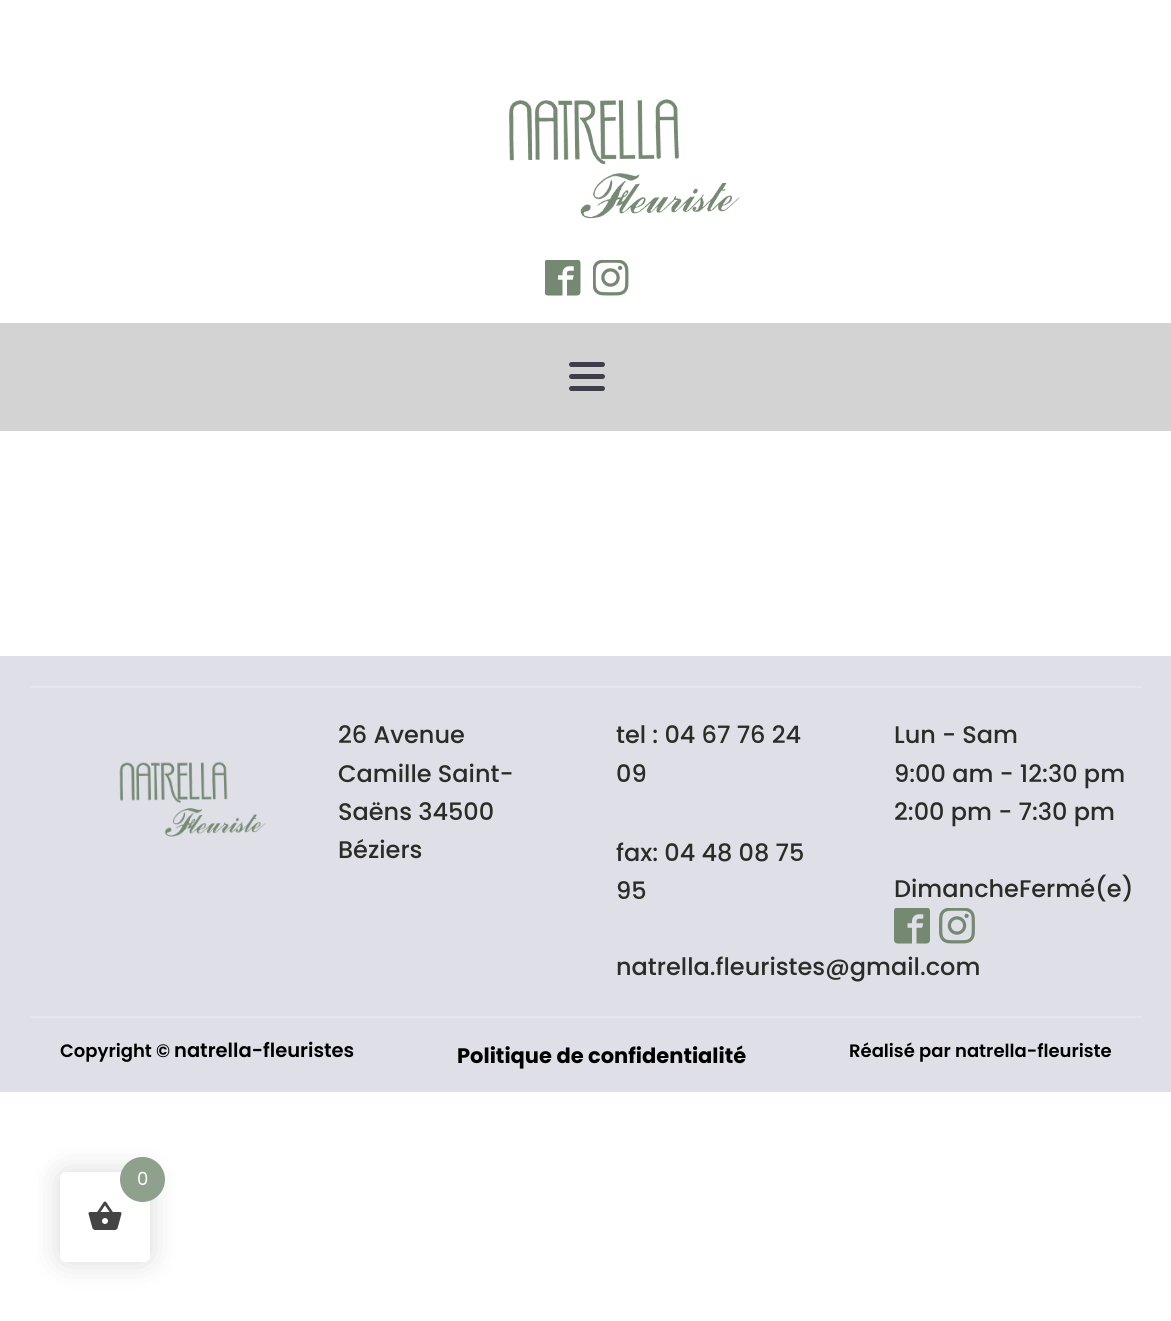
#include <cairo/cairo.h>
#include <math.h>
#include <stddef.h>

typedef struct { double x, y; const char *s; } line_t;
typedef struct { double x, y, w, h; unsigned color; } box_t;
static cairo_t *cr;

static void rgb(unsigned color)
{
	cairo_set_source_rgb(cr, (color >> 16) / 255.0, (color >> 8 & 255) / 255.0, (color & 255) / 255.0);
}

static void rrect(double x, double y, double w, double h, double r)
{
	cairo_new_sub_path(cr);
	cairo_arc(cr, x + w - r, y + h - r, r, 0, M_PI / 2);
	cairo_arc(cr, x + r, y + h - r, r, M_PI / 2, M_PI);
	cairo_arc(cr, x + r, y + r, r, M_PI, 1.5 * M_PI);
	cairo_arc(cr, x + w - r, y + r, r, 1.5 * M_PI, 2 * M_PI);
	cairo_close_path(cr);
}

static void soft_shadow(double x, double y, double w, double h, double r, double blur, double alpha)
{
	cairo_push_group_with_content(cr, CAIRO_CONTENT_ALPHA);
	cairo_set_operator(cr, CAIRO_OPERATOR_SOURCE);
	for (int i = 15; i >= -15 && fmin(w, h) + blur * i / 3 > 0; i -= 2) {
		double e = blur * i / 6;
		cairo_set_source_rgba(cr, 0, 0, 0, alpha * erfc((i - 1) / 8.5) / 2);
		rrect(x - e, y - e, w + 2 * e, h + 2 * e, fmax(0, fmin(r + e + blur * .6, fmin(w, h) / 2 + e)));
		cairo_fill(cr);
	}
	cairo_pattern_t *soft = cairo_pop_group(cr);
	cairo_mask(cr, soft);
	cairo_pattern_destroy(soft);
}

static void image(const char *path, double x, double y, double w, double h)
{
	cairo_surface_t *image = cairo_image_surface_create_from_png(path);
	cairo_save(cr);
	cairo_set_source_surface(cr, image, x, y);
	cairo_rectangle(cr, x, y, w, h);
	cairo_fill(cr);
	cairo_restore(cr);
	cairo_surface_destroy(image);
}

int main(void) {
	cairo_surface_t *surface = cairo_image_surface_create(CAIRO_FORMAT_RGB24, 1171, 1321);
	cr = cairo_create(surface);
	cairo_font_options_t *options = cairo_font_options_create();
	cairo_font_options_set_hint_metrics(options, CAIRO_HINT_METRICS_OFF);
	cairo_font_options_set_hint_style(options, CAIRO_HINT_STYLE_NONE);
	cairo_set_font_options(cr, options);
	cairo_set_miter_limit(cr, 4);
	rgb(0xffffff);
	cairo_paint(cr);
	image("img/1.png", 509, 99, 231, 120);
	image("img/2.png", 545, 260, 36, 36);
	image("img/3.png", 593, 260, 36, 36);
	rgb(0xd3d3d3);
	cairo_rectangle(cr, 0, 323, 1171, 108);
	cairo_fill(cr);
	rgb(0x3e3e4b);
	rrect(569, 362, 36, 5, 2.5);
	cairo_fill(cr);
	rrect(569, 374, 36, 5, 2.5);
	cairo_fill(cr);
	rrect(569, 386, 36, 5, 2.5);
	cairo_fill(cr);
	{
		static const box_t items[] = {
			{0, 656, 1171, 436, 0xdfdfe7},
			{30, 686, 1112, 2, 0xe5e5ec},
			{30, 1016, 1112, 2, 0xe5e5ec},
		};
		for (size_t i = 0; i < sizeof items / sizeof *items; i++) {
			rgb(items[i].color);
			cairo_rectangle(cr, items[i].x, items[i].y, items[i].w, items[i].h);
			cairo_fill(cr);
		}
	}
	image("img/4.png", 119, 761, 147, 76);
	image("img/5.png", 894, 908, 36, 36);
	image("img/6.png", 939, 908, 36, 36);
	rgb(0x000000);
	soft_shadow(60, 1172, 90, 90, 6, 15, 0.15);
	rgb(0xffffff);
	rrect(60, 1172, 90, 90, 6);
	cairo_fill(cr);
	image("img/7.png", 88, 1201, 34, 29);
	rgb(0x8fa08d);
	cairo_arc(cr, 142.5, 1179.5, 22.5, 0, 2 * M_PI);
	cairo_fill(cr);
	cairo_select_font_face(cr, "Poppins Medium", CAIRO_FONT_SLANT_NORMAL, CAIRO_FONT_WEIGHT_NORMAL);
	cairo_set_font_size(cr, 24);
	rgb(0x2b2c28);
	{
		static const line_t items[] = {
			{338, 743, "26 Avenue"},
			{338, 782, "Camille Saint-"},
			{338, 820, "Saëns 34500"},
			{338, 858, "Béziers"},
			{616, 743, "tel : 04 67 76 24"},
			{616, 782, "09"},
			{616, 861, "fax: 04 48 08 75"},
			{616, 899, "95"},
			{616, 975, "natrella.fleuristes@gmail.com"},
			{894, 743, "Lun - Sam"},
			{894, 782, "9:00 am - 12:30 pm"},
			{894, 820, "2:00 pm - 7:30 pm"},
			{894, 897, "DimancheFermé(e)"},
		};
		for (size_t i = 0; i < sizeof items / sizeof *items; i++) {
			cairo_move_to(cr, items[i].x, items[i].y);
			cairo_show_text(cr, items[i].s);
		}
	}
	cairo_select_font_face(cr, "Poppins SemiBold", CAIRO_FONT_SLANT_NORMAL, CAIRO_FONT_WEIGHT_NORMAL);
	cairo_set_font_size(cr, 18);
	rgb(0x000000);
	cairo_move_to(cr, 60, 1057);
	cairo_show_text(cr, "Copyright ©");
	cairo_set_font_size(cr, 19.5);
	cairo_move_to(cr, 174, 1057);
	cairo_show_text(cr, "natrella-fleuristes");
	cairo_select_font_face(cr, "Poppins", CAIRO_FONT_SLANT_NORMAL, CAIRO_FONT_WEIGHT_BOLD);
	cairo_set_font_size(cr, 21);
	cairo_move_to(cr, 457, 1063);
	cairo_show_text(cr, "Politique de confidentialité");
	cairo_select_font_face(cr, "Poppins SemiBold", CAIRO_FONT_SLANT_NORMAL, CAIRO_FONT_WEIGHT_NORMAL);
	cairo_set_font_size(cr, 18);
	cairo_move_to(cr, 849, 1057);
	cairo_show_text(cr, "Réalisé par natrella-fleuriste");
	cairo_select_font_face(cr, "Poppins", CAIRO_FONT_SLANT_NORMAL, CAIRO_FONT_WEIGHT_NORMAL);
	rgb(0xffffff);
	cairo_move_to(cr, 137, 1185);
	cairo_show_text(cr, "0");
	cairo_surface_write_to_png(surface, "page.png");
	cairo_font_options_destroy(options);
	cairo_destroy(cr);
	cairo_surface_destroy(surface);
	return 0;
}
